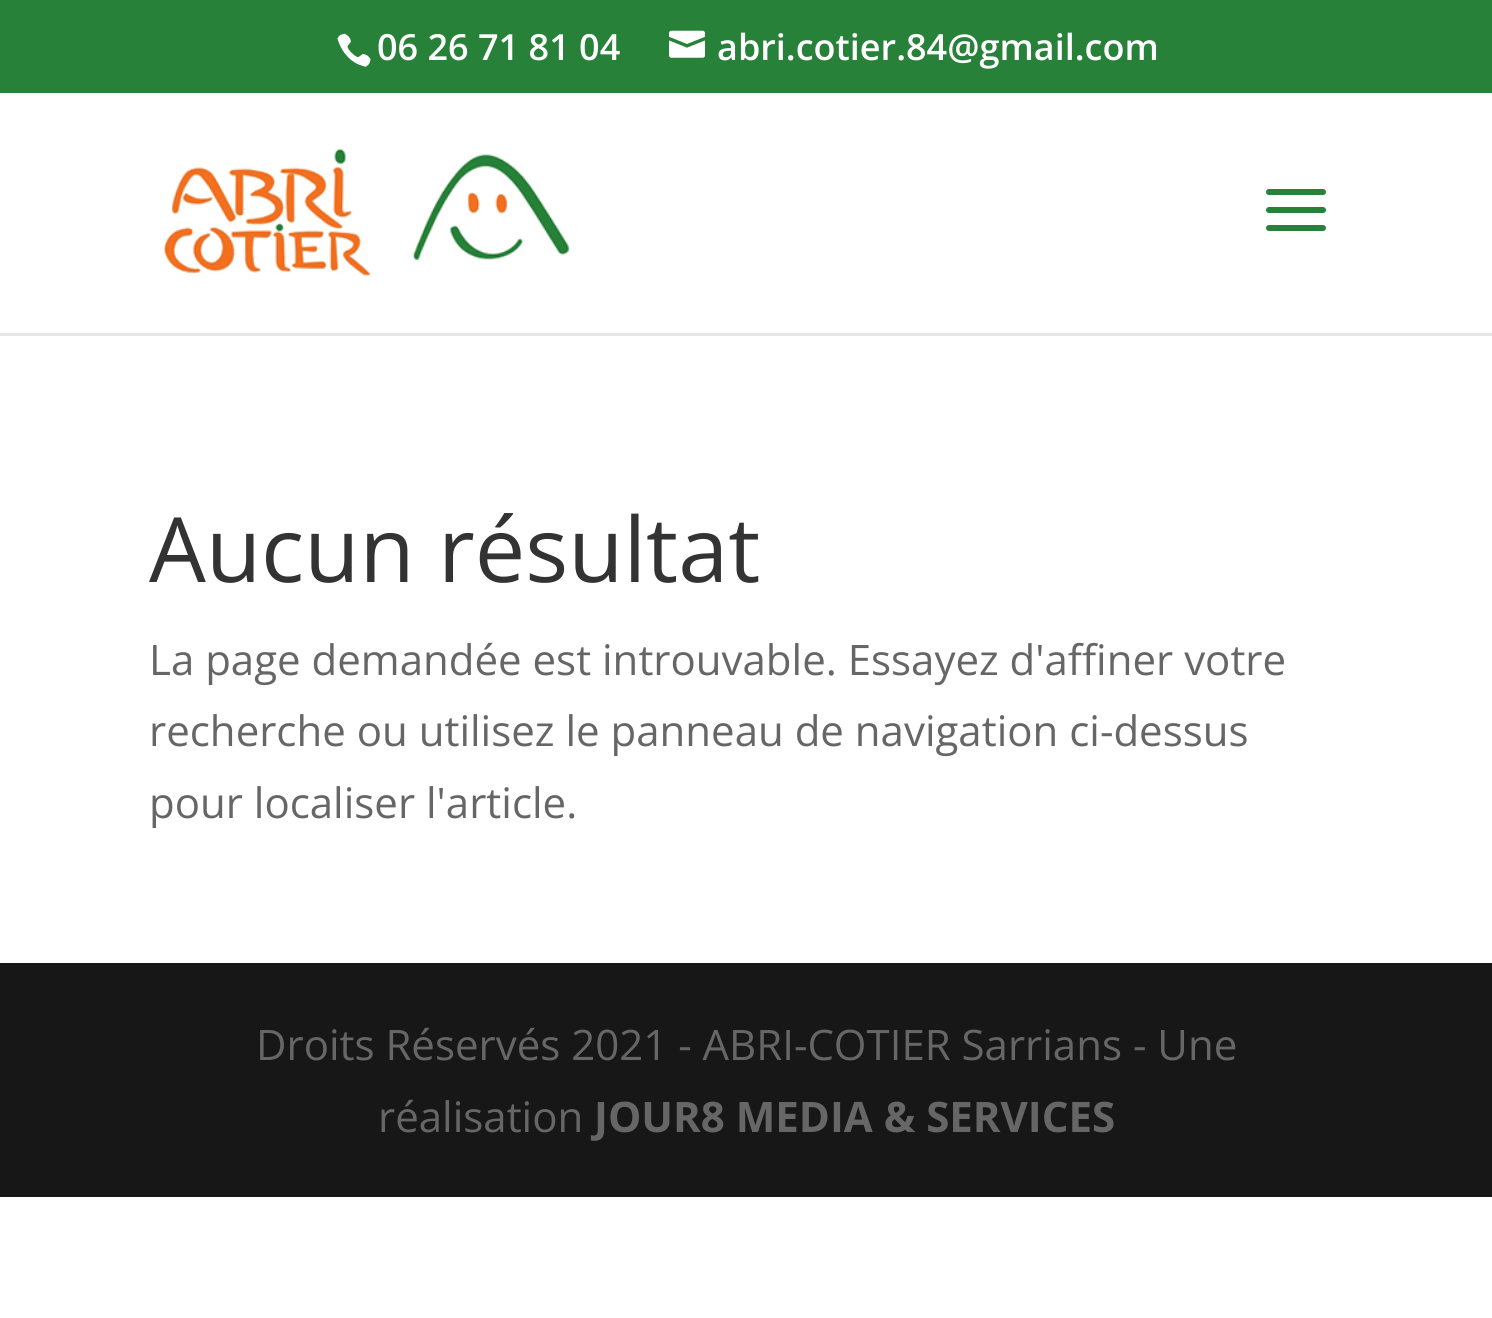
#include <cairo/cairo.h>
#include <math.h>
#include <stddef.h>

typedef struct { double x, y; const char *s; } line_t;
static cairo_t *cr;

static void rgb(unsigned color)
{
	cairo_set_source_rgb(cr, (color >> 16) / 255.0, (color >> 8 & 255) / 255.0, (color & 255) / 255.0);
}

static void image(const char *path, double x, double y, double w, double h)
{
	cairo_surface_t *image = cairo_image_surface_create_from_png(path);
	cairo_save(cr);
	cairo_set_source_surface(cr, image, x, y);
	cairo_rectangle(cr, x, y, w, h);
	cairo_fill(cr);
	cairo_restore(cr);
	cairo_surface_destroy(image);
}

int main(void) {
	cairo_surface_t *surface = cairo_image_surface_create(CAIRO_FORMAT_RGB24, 1492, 1318);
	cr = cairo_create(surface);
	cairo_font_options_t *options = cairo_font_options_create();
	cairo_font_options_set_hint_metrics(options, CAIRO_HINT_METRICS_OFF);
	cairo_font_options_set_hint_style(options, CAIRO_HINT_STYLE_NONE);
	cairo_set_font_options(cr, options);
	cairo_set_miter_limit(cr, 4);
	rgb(0xffffff);
	cairo_paint(cr);
	rgb(0x278139);
	cairo_rectangle(cr, 0, 0, 1492, 93);
	cairo_fill(cr);
	image("img/1.png", 337, 33, 34, 34);
	image("img/2.png", 669, 30, 36, 28);
	rgb(0xe6e6e6);
	cairo_rectangle(cr, 0, 333, 1492, 3);
	cairo_fill(cr);
	image("img/3.png", 164, 148, 406, 128);
	image("img/4.png", 1266, 189, 60, 42);
	rgb(0x171717);
	cairo_rectangle(cr, 0, 963, 1492, 234);
	cairo_fill(cr);
	cairo_select_font_face(cr, "Open Sans SemiBold", CAIRO_FONT_SLANT_NORMAL, CAIRO_FONT_WEIGHT_NORMAL);
	cairo_set_font_size(cr, 36);
	rgb(0xffffff);
	cairo_move_to(cr, 377, 60);
	cairo_show_text(cr, "06 26 71 81 04");
	cairo_move_to(cr, 717, 60);
	cairo_show_text(cr, "abri.cotier.84@gmail.com");
	cairo_select_font_face(cr, "Open Sans", CAIRO_FONT_SLANT_NORMAL, CAIRO_FONT_WEIGHT_NORMAL);
	cairo_set_font_size(cr, 90);
	rgb(0x333333);
	cairo_move_to(cr, 149, 582);
	cairo_show_text(cr, "Aucun résultat");
	cairo_set_font_size(cr, 42);
	rgb(0x666666);
	{
		static const line_t items[] = {
			{149, 675, "La page demandée est introuvable. Essayez d'affiner votre"},
			{149, 746, "recherche ou utilisez le panneau de navigation ci-dessus"},
			{149, 818, "pour localiser l'article."},
			{256, 1060, "Droits Réservés 2021 - ABRI-COTIER Sarrians - Une"},
			{378, 1132, "réalisation"},
		};
		for (size_t i = 0; i < sizeof items / sizeof *items; i++) {
			cairo_move_to(cr, items[i].x, items[i].y);
			cairo_show_text(cr, items[i].s);
		}
	}
	cairo_select_font_face(cr, "Open Sans", CAIRO_FONT_SLANT_NORMAL, CAIRO_FONT_WEIGHT_BOLD);
	cairo_move_to(cr, 594, 1132);
	cairo_show_text(cr, "JOUR8 MEDIA & SERVICES");
	cairo_surface_write_to_png(surface, "page.png");
	cairo_font_options_destroy(options);
	cairo_destroy(cr);
	cairo_surface_destroy(surface);
	return 0;
}
